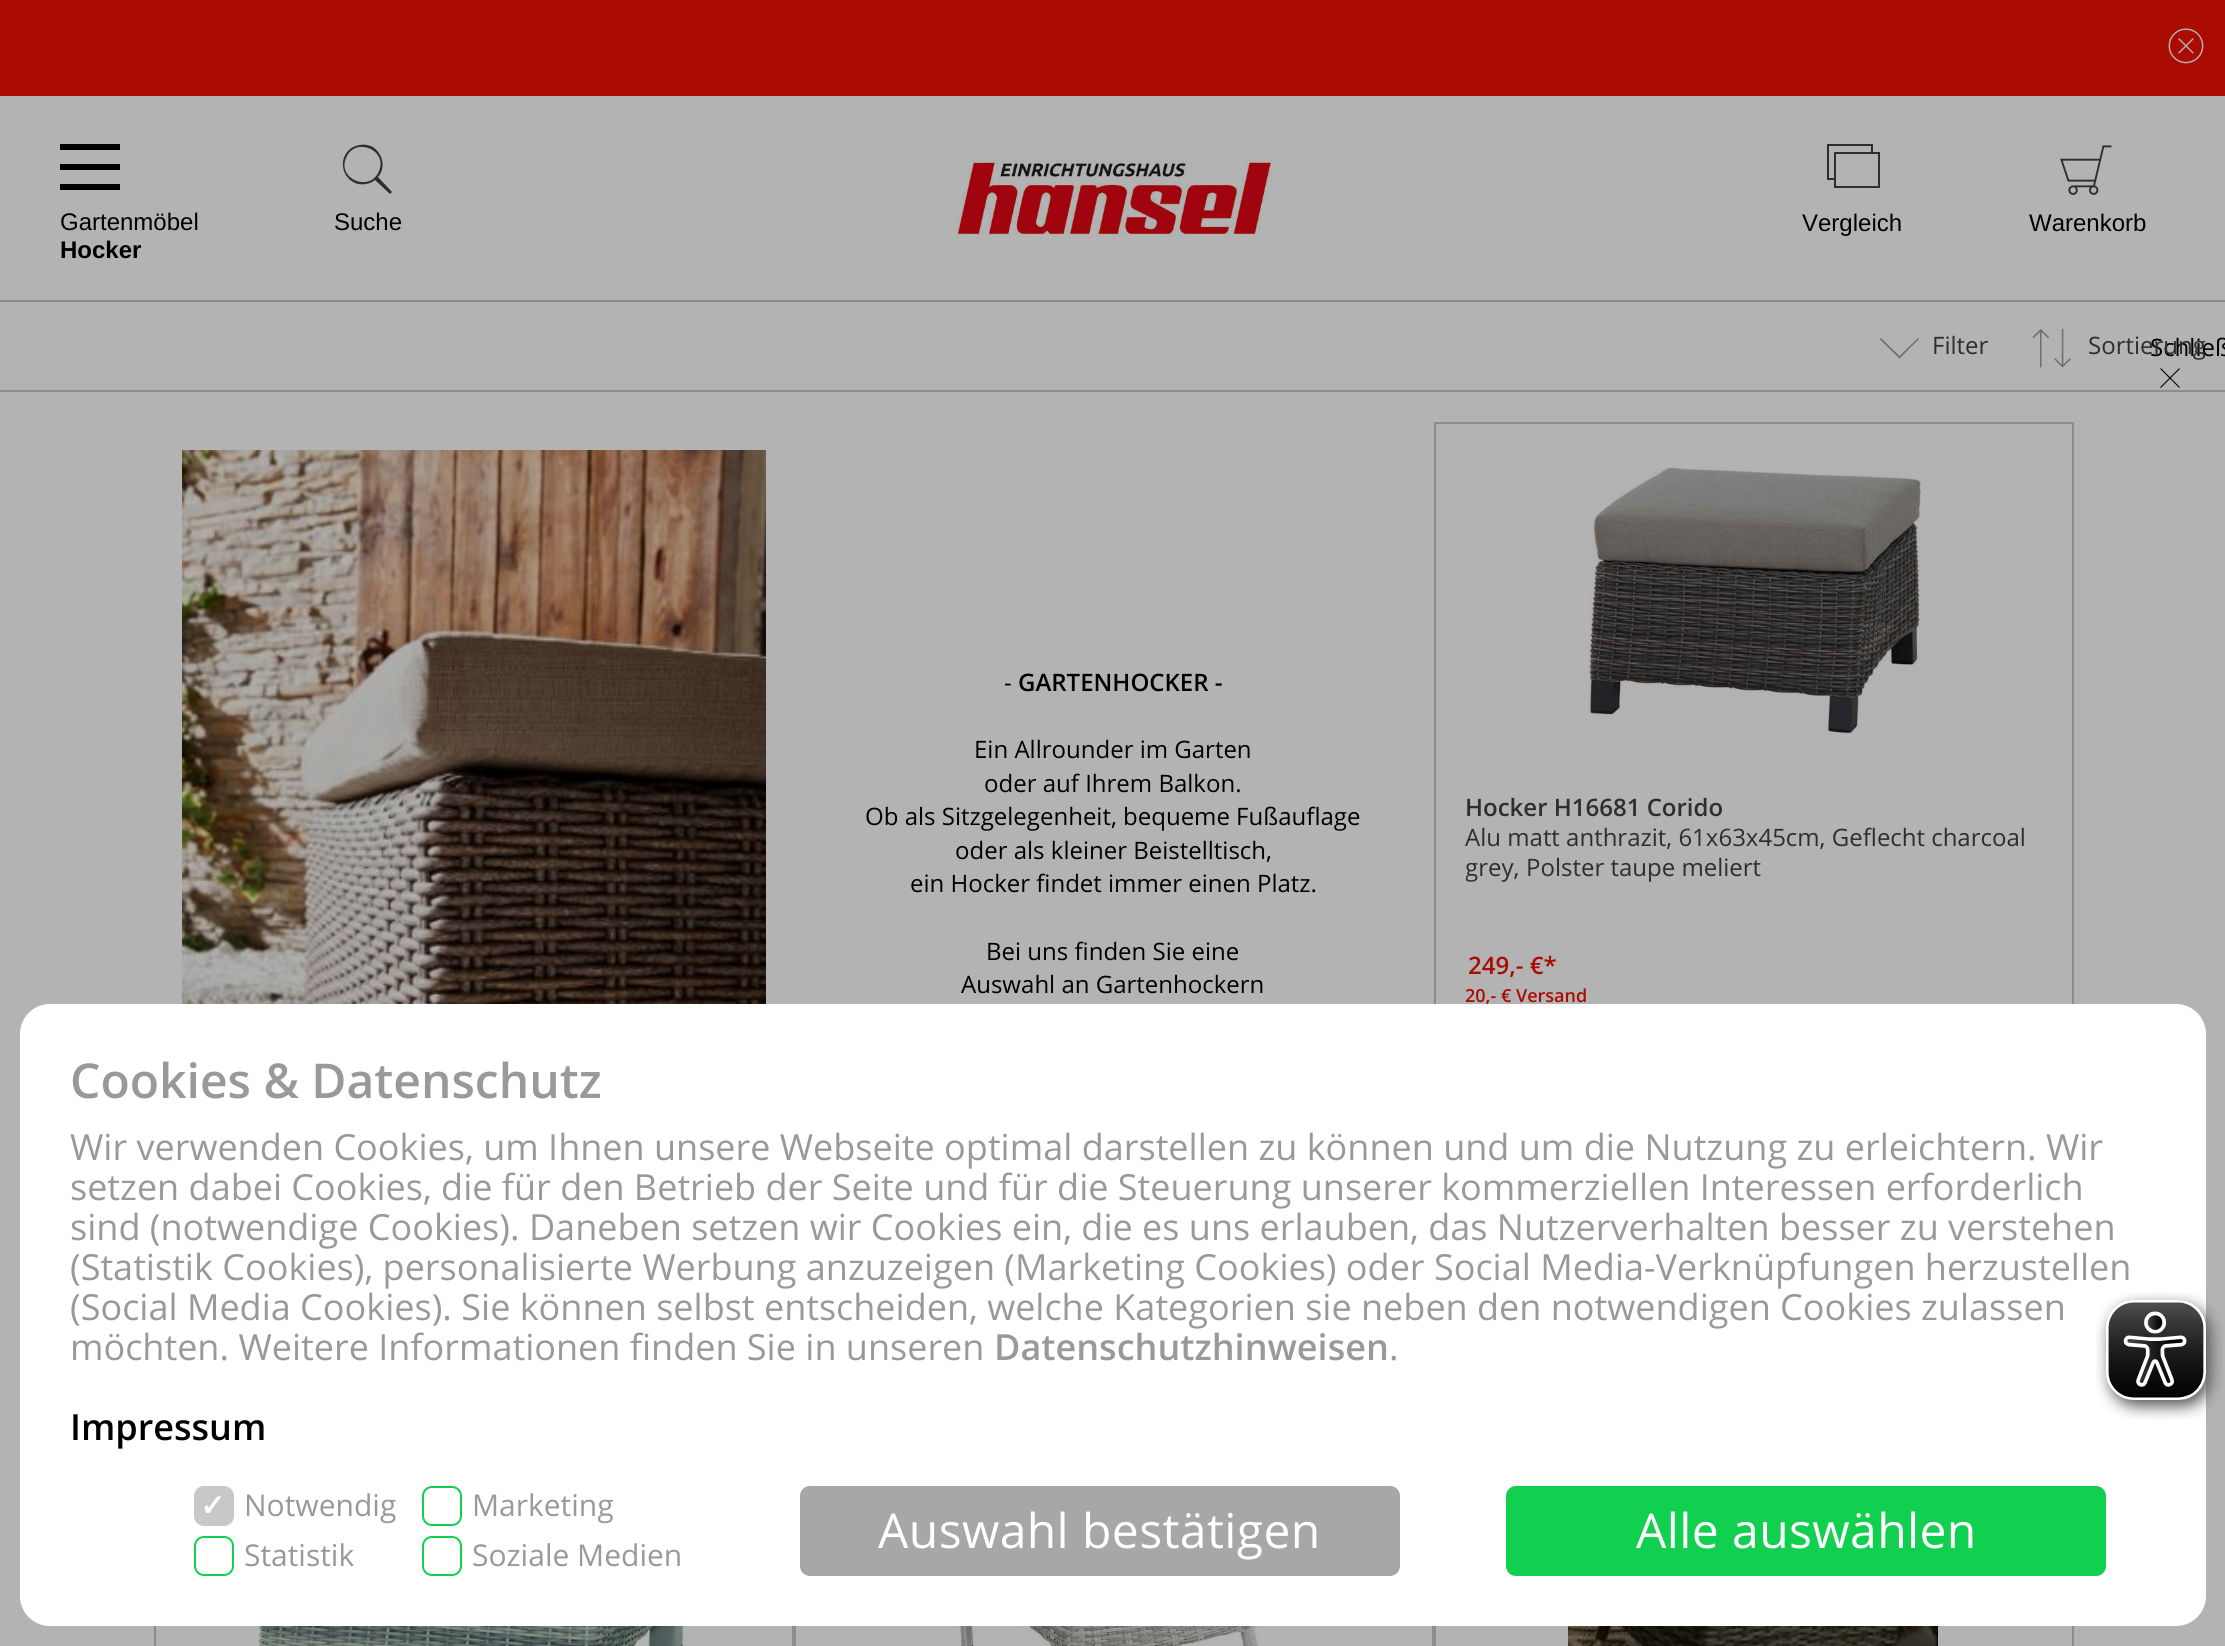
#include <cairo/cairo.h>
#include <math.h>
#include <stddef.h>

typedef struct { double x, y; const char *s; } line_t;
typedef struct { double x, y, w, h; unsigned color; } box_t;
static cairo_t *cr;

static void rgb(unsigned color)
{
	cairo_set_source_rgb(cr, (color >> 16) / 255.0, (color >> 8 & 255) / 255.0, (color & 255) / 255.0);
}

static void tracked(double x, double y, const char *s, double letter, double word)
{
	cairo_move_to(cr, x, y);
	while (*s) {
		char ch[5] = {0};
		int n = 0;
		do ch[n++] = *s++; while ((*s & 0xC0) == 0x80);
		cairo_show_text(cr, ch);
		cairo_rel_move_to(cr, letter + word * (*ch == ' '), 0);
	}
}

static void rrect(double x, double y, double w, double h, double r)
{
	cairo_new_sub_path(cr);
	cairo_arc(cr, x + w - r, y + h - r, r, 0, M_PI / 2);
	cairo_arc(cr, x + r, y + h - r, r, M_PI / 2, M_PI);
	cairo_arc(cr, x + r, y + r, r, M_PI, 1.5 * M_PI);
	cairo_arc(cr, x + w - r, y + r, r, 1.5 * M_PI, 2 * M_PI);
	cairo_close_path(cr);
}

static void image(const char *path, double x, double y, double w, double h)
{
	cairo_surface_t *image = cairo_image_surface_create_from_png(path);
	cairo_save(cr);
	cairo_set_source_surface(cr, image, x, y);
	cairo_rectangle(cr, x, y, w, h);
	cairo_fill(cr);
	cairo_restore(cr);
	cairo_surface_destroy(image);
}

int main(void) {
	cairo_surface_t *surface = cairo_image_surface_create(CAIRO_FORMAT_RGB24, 2225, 1646);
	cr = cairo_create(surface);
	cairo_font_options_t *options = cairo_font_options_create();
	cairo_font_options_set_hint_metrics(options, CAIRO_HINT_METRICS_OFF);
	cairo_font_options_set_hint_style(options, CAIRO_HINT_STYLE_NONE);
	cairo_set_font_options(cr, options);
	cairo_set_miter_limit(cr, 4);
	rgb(0xb3b3b3);
	cairo_paint(cr);
	rgb(0x888888);
	cairo_rectangle(cr, 0, 300, 2225, 2);
	cairo_fill(cr);
	rgb(0xab0c01);
	cairo_rectangle(cr, 0, 0, 2225, 96);
	cairo_fill(cr);
	image("img/1.png", 2168, 28, 36, 36);
	{
		static const box_t items[] = {
			{60, 164, 60, 6, 0x000000},
			{60, 144, 60, 6, 0x000000},
			{60, 184, 60, 6, 0x000000},
		};
		for (size_t i = 0; i < sizeof items / sizeof *items; i++) {
			rgb(items[i].color);
			cairo_rectangle(cr, items[i].x, items[i].y, items[i].w, items[i].h);
			cairo_fill(cr);
		}
	}
	rgb(0x2e2e2e);
	cairo_new_path(cr);
	cairo_move_to(cr, 375, 180);
	cairo_curve_to(cr, 370, 184, 364, 185, 358, 184);
	cairo_curve_to(cr, 337, 178, 338, 148, 360, 145);
	cairo_curve_to(cr, 364, 144, 369, 145, 373, 147);
	cairo_curve_to(cr, 383, 154, 386, 168, 378, 177);
	cairo_line_to(cr, 392, 192);
	cairo_line_to(cr, 390, 194);
	cairo_close_path(cr);
	cairo_move_to(cr, 346, 158);
	cairo_curve_to(cr, 337, 179, 370, 193, 379, 171);
	cairo_curve_to(cr, 388, 150, 355, 136, 346, 158);
	cairo_close_path(cr);
	cairo_fill(cr);
	image("img/2.png", 956, 160, 317, 75);
	cairo_new_path(cr);
	cairo_move_to(cr, 1834, 188);
	cairo_line_to(cr, 1834, 180);
	cairo_line_to(cr, 1827, 180);
	cairo_line_to(cr, 1827, 144);
	cairo_line_to(cr, 1873, 144);
	cairo_line_to(cr, 1873, 152);
	cairo_line_to(cr, 1880, 152);
	cairo_line_to(cr, 1880, 188);
	cairo_close_path(cr);
	cairo_move_to(cr, 1871, 152);
	cairo_line_to(cr, 1871, 146);
	cairo_line_to(cr, 1829, 146);
	cairo_line_to(cr, 1829, 178);
	cairo_line_to(cr, 1834, 178);
	cairo_line_to(cr, 1834, 152);
	cairo_close_path(cr);
	cairo_move_to(cr, 1836, 186);
	cairo_line_to(cr, 1878, 186);
	cairo_line_to(cr, 1878, 154);
	cairo_line_to(cr, 1836, 154);
	cairo_close_path(cr);
	cairo_fill(cr);
	image("img/3.png", 2060, 145, 52, 50);
	rgb(0x8d8d8d);
	cairo_rectangle(cr, 0, 390, 2225, 2);
	cairo_fill(cr);
	rgb(0x707070);
	cairo_new_path(cr);
	cairo_move_to(cr, 1881, 338);
	cairo_line_to(cr, 1899.5, 356);
	cairo_line_to(cr, 1918, 338);
	cairo_line_to(cr, 1919, 339);
	cairo_line_to(cr, 1899.5, 358.5);
	cairo_line_to(cr, 1879.5, 339);
	cairo_close_path(cr);
	cairo_fill(cr);
	image("img/4.png", 2032, 328, 39, 40);
	image("img/5.png", 182, 450, 584, 554);
	cairo_rectangle(cr, 1435, 423, 638, 958);
	rgb(0x8d8d8d);
	cairo_stroke(cr);
	image("img/6.png", 1588, 467, 333, 267);
	cairo_rectangle(cr, 155, 1383, 638, 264);
	cairo_stroke(cr);
	image("img/7.png", 258, 1626, 433, 20);
	cairo_rectangle(cr, 795, 1383, 638, 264);
	cairo_stroke(cr);
	image("img/8.png", 947, 1626, 311, 20);
	cairo_rectangle(cr, 1435, 1383, 638, 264);
	cairo_stroke(cr);
	image("img/9.png", 1568, 1626, 370, 20);
	cairo_new_path(cr);
	cairo_move_to(cr, 2160.5, 368.5);
	cairo_line_to(cr, 2179.5, 387.5);
	cairo_move_to(cr, 2160.5, 387.5);
	cairo_line_to(cr, 2179.5, 368.5);
	rgb(0x000000);
	cairo_set_line_width(cr, 1.1);
	cairo_stroke(cr);
	cairo_select_font_face(cr, "Liberation Sans", CAIRO_FONT_SLANT_NORMAL, CAIRO_FONT_WEIGHT_NORMAL);
	cairo_set_font_size(cr, 24);
	cairo_move_to(cr, 60, 230);
	cairo_show_text(cr, "Gartenmöbel");
	cairo_select_font_face(cr, "Liberation Sans", CAIRO_FONT_SLANT_NORMAL, CAIRO_FONT_WEIGHT_BOLD);
	cairo_move_to(cr, 60, 258);
	cairo_show_text(cr, "Hocker");
	cairo_select_font_face(cr, "Liberation Sans", CAIRO_FONT_SLANT_NORMAL, CAIRO_FONT_WEIGHT_NORMAL);
	{
		static const line_t items[] = {
			{334, 230, "Suche"},
			{1802, 231, "Vergleich"},
			{2029, 231, "Warenkorb"},
		};
		for (size_t i = 0; i < sizeof items / sizeof *items; i++) {
			cairo_move_to(cr, items[i].x, items[i].y);
			cairo_show_text(cr, items[i].s);
		}
	}
	cairo_select_font_face(cr, "Open Sans", CAIRO_FONT_SLANT_NORMAL, CAIRO_FONT_WEIGHT_NORMAL);
	rgb(0x2e2e2e);
	cairo_move_to(cr, 1932, 354);
	cairo_show_text(cr, "Filter");
	rgb(0x000000);
	cairo_move_to(cr, 1004, 691);
	cairo_show_text(cr, "-");
	cairo_select_font_face(cr, "Open Sans SemiBold", CAIRO_FONT_SLANT_NORMAL, CAIRO_FONT_WEIGHT_NORMAL);
	cairo_move_to(cr, 1018, 691);
	cairo_show_text(cr, "GARTENHOCKER -");
	cairo_select_font_face(cr, "Open Sans", CAIRO_FONT_SLANT_NORMAL, CAIRO_FONT_WEIGHT_NORMAL);
	{
		static const line_t items[] = {
			{974, 758, "Ein Allrounder im Garten"},
			{984, 792, "oder auf Ihrem Balkon."},
			{865, 825, "Ob als Sitzgelegenheit, bequeme Fußauflage"},
			{955, 859, "oder als kleiner Beistelltisch,"},
			{910, 892, "ein Hocker findet immer einen Platz."},
			{986, 960, "Bei uns finden Sie eine"},
			{961, 993, "Auswahl an Gartenhockern"},
		};
		for (size_t i = 0; i < sizeof items / sizeof *items; i++) {
			cairo_move_to(cr, items[i].x, items[i].y);
			cairo_show_text(cr, items[i].s);
		}
	}
	cairo_select_font_face(cr, "Open Sans SemiBold", CAIRO_FONT_SLANT_NORMAL, CAIRO_FONT_WEIGHT_NORMAL);
	rgb(0x2e2e2e);
	cairo_move_to(cr, 1465, 816);
	cairo_show_text(cr, "Hocker H16681 Corido");
	cairo_select_font_face(cr, "Open Sans", CAIRO_FONT_SLANT_NORMAL, CAIRO_FONT_WEIGHT_NORMAL);
	cairo_move_to(cr, 1465, 846);
	cairo_show_text(cr, "Alu matt anthrazit, 61x63x45cm, Geflecht charcoal");
	cairo_save(cr);
	cairo_rectangle(cr, 1466, 822, 576, 60);
	cairo_clip(cr);
	cairo_move_to(cr, 1465, 876);
	cairo_show_text(cr, "grey,");
	cairo_restore(cr);
	cairo_move_to(cr, 1526, 876);
	cairo_show_text(cr, "Polster taupe meliert");
	cairo_select_font_face(cr, "Open Sans SemiBold", CAIRO_FONT_SLANT_NORMAL, CAIRO_FONT_WEIGHT_NORMAL);
	rgb(0xab0c01);
	cairo_move_to(cr, 1468, 974);
	cairo_show_text(cr, "249,- €*");
	cairo_set_font_size(cr, 18);
	cairo_move_to(cr, 1465, 1002);
	cairo_show_text(cr, "20,- € Versand");
	cairo_select_font_face(cr, "Open Sans", CAIRO_FONT_SLANT_NORMAL, CAIRO_FONT_WEIGHT_NORMAL);
	cairo_set_font_size(cr, 24);
	rgb(0x000000);
	cairo_move_to(cr, 2150, 356);
	cairo_show_text(cr, "Schließ");
	rgb(0x2e2e2e);
	cairo_move_to(cr, 2088, 354);
	cairo_show_text(cr, "Sortierung");
	rgb(0xffffff);
	rrect(20, 1004, 2186, 622, 30);
	cairo_fill(cr);
	cairo_select_font_face(cr, "Open Sans SemiBold", CAIRO_FONT_SLANT_NORMAL, CAIRO_FONT_WEIGHT_NORMAL);
	cairo_set_font_size(cr, 48);
	rgb(0x999999);
	cairo_move_to(cr, 70, 1098);
	cairo_show_text(cr, "Cookies & Datenschutz");
	cairo_select_font_face(cr, "Open Sans", CAIRO_FONT_SLANT_NORMAL, CAIRO_FONT_WEIGHT_NORMAL);
	cairo_set_font_size(cr, 36);
	{
		static const line_t items[] = {
			{70, 1160, "Wir verwenden Cookies, um Ihnen unsere Webseite optimal darstellen zu können und um die Nutzung zu erleichtern. Wir"},
			{70, 1200, "setzen dabei Cookies, die für den Betrieb der Seite und für die Steuerung unserer kommerziellen Interessen erforderlich"},
			{70, 1240, "sind (notwendige Cookies). Daneben setzen wir Cookies ein, die es uns erlauben, das Nutzerverhalten besser zu verstehen"},
			{70, 1280, "(Statistik Cookies), personalisierte Werbung anzuzeigen (Marketing Cookies) oder Social Media-Verknüpfungen herzustellen"},
			{70, 1320, "(Social Media Cookies). Sie können selbst entscheiden, welche Kategorien sie neben den notwendigen Cookies zulassen"},
			{70, 1360, "möchten. Weitere Informationen finden Sie in unseren"},
		};
		for (size_t i = 0; i < sizeof items / sizeof *items; i++) {
			cairo_move_to(cr, items[i].x, items[i].y);
			cairo_show_text(cr, items[i].s);
		}
	}
	cairo_select_font_face(cr, "Open Sans SemiBold", CAIRO_FONT_SLANT_NORMAL, CAIRO_FONT_WEIGHT_NORMAL);
	cairo_move_to(cr, 994, 1360);
	cairo_show_text(cr, "Datenschutzhinweisen");
	cairo_select_font_face(cr, "Open Sans", CAIRO_FONT_SLANT_NORMAL, CAIRO_FONT_WEIGHT_NORMAL);
	cairo_move_to(cr, 1389, 1360);
	cairo_show_text(cr, ".");
	cairo_select_font_face(cr, "Open Sans SemiBold", CAIRO_FONT_SLANT_NORMAL, CAIRO_FONT_WEIGHT_NORMAL);
	rgb(0x000000);
	cairo_move_to(cr, 70, 1440);
	cairo_show_text(cr, "Impressum");
	rgb(0xc8c8c8);
	rrect(195, 1487, 38, 38, 9);
	cairo_fill_preserve(cr);
	cairo_set_line_width(cr, 2);
	cairo_stroke(cr);
	cairo_select_font_face(cr, "DejaVu Sans", CAIRO_FONT_SLANT_NORMAL, CAIRO_FONT_WEIGHT_BOLD);
	cairo_set_font_size(cr, 30);
	rgb(0xffffff);
	cairo_move_to(cr, 200, 1516);
	cairo_show_text(cr, "✓");
	cairo_select_font_face(cr, "Open Sans", CAIRO_FONT_SLANT_NORMAL, CAIRO_FONT_WEIGHT_NORMAL);
	rgb(0x999999);
	cairo_move_to(cr, 244, 1516);
	cairo_show_text(cr, "Notwendig");
	rrect(423, 1487, 38, 38, 9);
	rgb(0x11cf4f);
	cairo_stroke(cr);
	rgb(0x999999);
	cairo_move_to(cr, 472, 1516);
	cairo_show_text(cr, "Marketing");
	rrect(195, 1537, 38, 38, 9);
	rgb(0x11cf4f);
	cairo_stroke(cr);
	rgb(0x999999);
	cairo_move_to(cr, 244, 1566);
	cairo_show_text(cr, "Statistik");
	rrect(423, 1537, 38, 38, 9);
	rgb(0x11cf4f);
	cairo_stroke(cr);
	rgb(0x999999);
	cairo_move_to(cr, 472, 1566);
	cairo_show_text(cr, "Soziale Medien");
	rgb(0xa7a7a7);
	rrect(800, 1486, 600, 90, 10);
	cairo_fill(cr);
	cairo_set_font_size(cr, 48);
	rgb(0xffffff);
	tracked(878, 1548, "Auswahl bestätigen", 0.4, 0);
	rgb(0x11cf4f);
	rrect(1506, 1486, 600, 90, 10);
	cairo_fill(cr);
	rgb(0xffffff);
	tracked(1636, 1548, "Alle auswählen", 0.4, 0);
	image("img/10.png", 2096, 1292, 127, 128);
	cairo_surface_write_to_png(surface, "page.png");
	cairo_font_options_destroy(options);
	cairo_destroy(cr);
	cairo_surface_destroy(surface);
	return 0;
}
